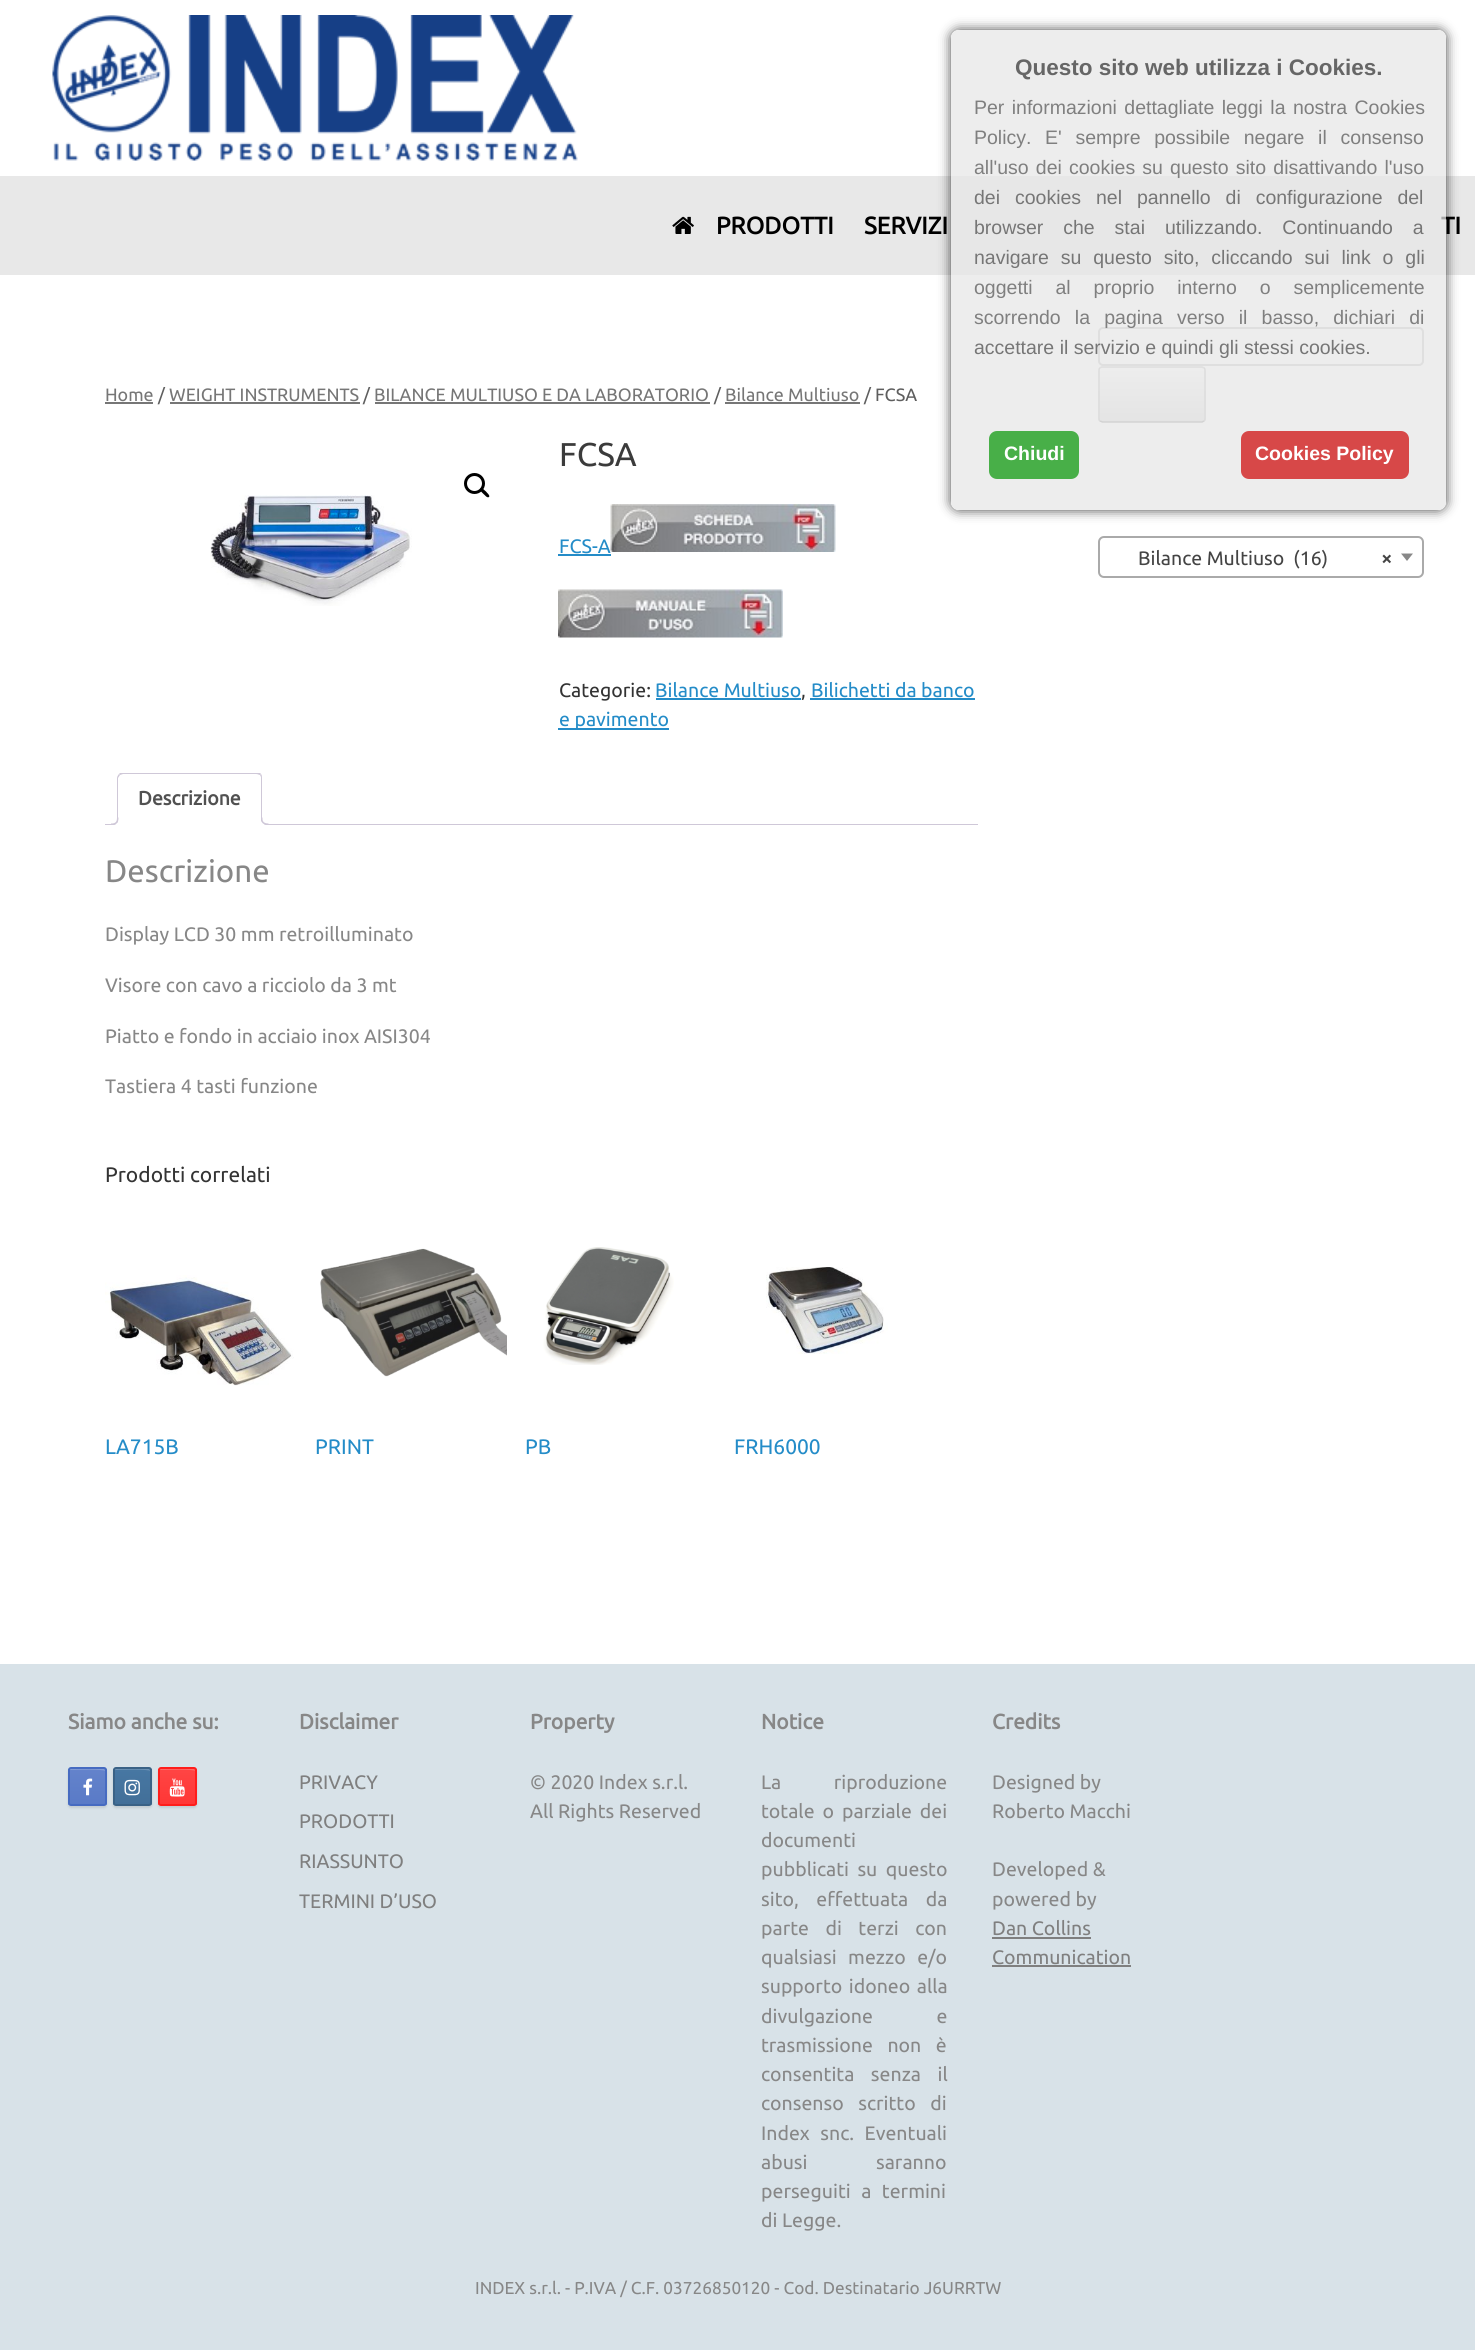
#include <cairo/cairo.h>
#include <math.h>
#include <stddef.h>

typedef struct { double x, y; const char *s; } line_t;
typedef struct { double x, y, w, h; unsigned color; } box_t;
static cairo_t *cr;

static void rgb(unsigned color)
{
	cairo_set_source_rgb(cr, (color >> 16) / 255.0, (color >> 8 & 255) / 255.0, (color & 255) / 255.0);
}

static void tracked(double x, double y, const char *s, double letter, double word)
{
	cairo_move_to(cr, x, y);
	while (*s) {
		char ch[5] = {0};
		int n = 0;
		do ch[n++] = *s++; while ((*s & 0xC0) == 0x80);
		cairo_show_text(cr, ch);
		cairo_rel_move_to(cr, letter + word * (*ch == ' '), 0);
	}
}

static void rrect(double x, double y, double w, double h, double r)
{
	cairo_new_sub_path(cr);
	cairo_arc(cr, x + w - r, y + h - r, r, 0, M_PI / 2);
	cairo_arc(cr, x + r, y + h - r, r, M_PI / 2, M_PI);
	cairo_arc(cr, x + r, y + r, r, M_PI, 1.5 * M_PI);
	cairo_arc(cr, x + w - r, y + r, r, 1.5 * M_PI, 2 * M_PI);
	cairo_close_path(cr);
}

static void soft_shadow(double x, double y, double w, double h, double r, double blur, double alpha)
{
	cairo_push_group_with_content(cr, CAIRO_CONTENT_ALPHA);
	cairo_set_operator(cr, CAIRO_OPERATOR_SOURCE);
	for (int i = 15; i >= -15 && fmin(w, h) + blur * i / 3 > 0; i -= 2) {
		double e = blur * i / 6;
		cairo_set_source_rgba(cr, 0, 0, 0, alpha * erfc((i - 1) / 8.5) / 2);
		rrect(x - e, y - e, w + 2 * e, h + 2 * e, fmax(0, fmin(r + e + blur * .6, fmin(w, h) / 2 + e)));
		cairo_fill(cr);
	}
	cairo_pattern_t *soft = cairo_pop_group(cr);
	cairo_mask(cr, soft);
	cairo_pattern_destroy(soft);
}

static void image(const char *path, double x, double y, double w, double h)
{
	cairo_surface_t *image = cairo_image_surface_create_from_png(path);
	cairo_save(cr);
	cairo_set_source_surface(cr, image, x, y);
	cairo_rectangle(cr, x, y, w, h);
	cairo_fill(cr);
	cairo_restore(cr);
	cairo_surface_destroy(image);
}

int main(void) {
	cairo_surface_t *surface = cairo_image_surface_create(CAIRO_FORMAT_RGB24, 1475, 2350);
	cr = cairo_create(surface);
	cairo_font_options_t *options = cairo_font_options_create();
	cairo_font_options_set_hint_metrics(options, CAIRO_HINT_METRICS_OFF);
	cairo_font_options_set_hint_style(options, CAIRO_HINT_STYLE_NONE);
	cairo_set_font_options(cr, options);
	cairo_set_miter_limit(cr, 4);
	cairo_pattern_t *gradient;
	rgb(0xd8e2e8);
	cairo_paint(cr);
	{
		static const box_t items[] = {
			{0, 0, 1475, 176, 0xffffff},
			{0, 176, 1475, 99, 0xe8e8e8},
			{0, 275, 1475, 1389, 0xffffff},
		};
		for (size_t i = 0; i < sizeof items / sizeof *items; i++) {
			rgb(items[i].color);
			cairo_rectangle(cr, items[i].x, items[i].y, items[i].w, items[i].h);
			cairo_fill(cr);
		}
	}
	rrect(1099, 328, 324, 37, 4);
	rgb(0xcccccc);
	cairo_stroke(cr);
	cairo_save(cr);
	rrect(1098, 366, 108, 57, 5);
	cairo_clip(cr);
	gradient = cairo_pattern_create_linear(1100, 368, 1100, 314);
	cairo_pattern_add_color_stop_rgba(gradient, 0, 0.875, 0.875, 0.875, 1);
	cairo_pattern_add_color_stop_rgba(gradient, 1, 1, 1, 1, 1);
	cairo_set_source(cr, gradient);
	cairo_pattern_destroy(gradient);
	cairo_rectangle(cr, 1098, 366, 108, 2);
	cairo_fill(cr);
	gradient = cairo_pattern_create_linear(1100, 422, 1100, 368);
	cairo_pattern_add_color_stop_rgba(gradient, 0, 0.875, 0.875, 0.875, 1);
	cairo_pattern_add_color_stop_rgba(gradient, 1, 1, 1, 1, 1);
	cairo_set_source(cr, gradient);
	cairo_pattern_destroy(gradient);
	cairo_rectangle(cr, 1098, 368, 108, 54);
	cairo_fill(cr);
	cairo_restore(cr);
	cairo_new_path(cr);
	cairo_move_to(cr, 1100, 368);
	cairo_line_to(cr, 1102, 367);
	cairo_line_to(cr, 1185, 367);
	cairo_line_to(cr, 1201.5, 367);
	cairo_line_to(cr, 1204, 368);
	rgb(0xd2d2d2);
	cairo_set_line_width(cr, 1.5);
	cairo_stroke(cr);
	cairo_new_path(cr);
	cairo_move_to(cr, 1204, 368);
	cairo_curve_to(cr, 1205, 368.5, 1205, 369.5, 1205, 370.5);
	cairo_line_to(cr, 1205, 418.5);
	cairo_curve_to(cr, 1205, 419.5, 1205, 420.5, 1204, 421);
	rgb(0xc3c3c3);
	cairo_stroke(cr);
	cairo_new_path(cr);
	cairo_move_to(cr, 1204, 421);
	cairo_line_to(cr, 1202, 422);
	cairo_line_to(cr, 1119, 422);
	cairo_line_to(cr, 1102.5, 422);
	cairo_line_to(cr, 1100, 421);
	rgb(0x9f9f9f);
	cairo_stroke(cr);
	cairo_new_path(cr);
	cairo_move_to(cr, 1100, 421);
	cairo_curve_to(cr, 1099, 420.5, 1099, 419.5, 1099, 418.5);
	cairo_line_to(cr, 1099, 370.5);
	cairo_curve_to(cr, 1099, 369.5, 1099, 368.5, 1100, 368);
	rgb(0xc3c3c3);
	cairo_stroke(cr);
	cairo_save(cr);
	cairo_set_fill_rule(cr, CAIRO_FILL_RULE_EVEN_ODD);
	cairo_new_path(cr);
	cairo_move_to(cr, 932, 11);
	cairo_line_to(cr, 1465, 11);
	cairo_line_to(cr, 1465, 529);
	cairo_line_to(cr, 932, 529);
	cairo_close_path(cr);
	cairo_move_to(cr, 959, 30);
	cairo_line_to(cr, 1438, 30);
	cairo_curve_to(cr, 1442.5, 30, 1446, 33.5, 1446, 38);
	cairo_line_to(cr, 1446, 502);
	cairo_curve_to(cr, 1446, 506.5, 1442.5, 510, 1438, 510);
	cairo_line_to(cr, 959, 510);
	cairo_curve_to(cr, 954.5, 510, 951, 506.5, 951, 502);
	cairo_line_to(cr, 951, 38);
	cairo_curve_to(cr, 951, 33.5, 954.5, 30, 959, 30);
	cairo_close_path(cr);
	cairo_clip(cr);
	rgb(0x000000);
	soft_shadow(951, 30, 495, 480, 8, 6, 0.72);
	cairo_restore(cr);
	image("img/1.png", 52, 15, 526, 146);
	image("img/2.png", 672, 216, 22, 18);
	{
		static const box_t items[] = {
			{105, 402, 48, 2, 0x767676},
			{170, 402, 190, 2, 0x767676},
			{375, 402, 335, 2, 0x767676},
			{725, 402, 135, 2, 0x767676},
		};
		for (size_t i = 0; i < sizeof items / sizeof *items; i++) {
			rgb(items[i].color);
			cairo_rectangle(cr, items[i].x, items[i].y, items[i].w, items[i].h);
			cairo_fill(cr);
		}
	}
	cairo_arc(cr, 474.5, 483.5, 9, 0, 2 * M_PI);
	rgb(0x000000);
	cairo_set_line_width(cr, 3);
	cairo_stroke(cr);
	cairo_new_path(cr);
	cairo_move_to(cr, 480.5, 488.5);
	cairo_curve_to(cr, 482, 487, 485, 491, 486, 491.5);
	cairo_curve_to(cr, 486.5, 492.5, 490.5, 495.5, 489, 497);
	cairo_curve_to(cr, 487, 498.5, 484.5, 494.5, 483.5, 494);
	cairo_curve_to(cr, 482.5, 493, 479, 490, 480.5, 488.5);
	cairo_close_path(cr);
	cairo_fill(cr);
	image("img/3.png", 210, 495, 202, 111);
	rgb(0x248cc8);
	cairo_rectangle(cr, 558, 554, 53, 2);
	cairo_fill(cr);
	image("img/5.png", 558, 589, 225, 49);
	{
		static const box_t items[] = {
			{656, 698, 145, 2, 0x248cc8},
			{810, 698, 165, 2, 0x248cc8},
			{558, 728, 111, 2, 0x248cc8},
			{105, 824, 873, 1, 0xcfc8d8},
		};
		for (size_t i = 0; i < sizeof items / sizeof *items; i++) {
			rgb(items[i].color);
			cairo_rectangle(cr, items[i].x, items[i].y, items[i].w, items[i].h);
			cairo_fill(cr);
		}
	}
	rgb(0xffffff);
	cairo_new_path(cr);
	cairo_move_to(cr, 123, 773);
	cairo_line_to(cr, 257, 773);
	cairo_curve_to(cr, 260.5, 773, 263, 775.5, 263, 779);
	cairo_line_to(cr, 263, 825);
	cairo_line_to(cr, 117, 825);
	cairo_line_to(cr, 117, 779);
	cairo_curve_to(cr, 117, 775.5, 119.5, 773, 123, 773);
	cairo_close_path(cr);
	cairo_fill(cr);
	cairo_save(cr);
	cairo_rectangle(cr, 105, 773, 873, 52);
	cairo_clip(cr);
	rgb(0xcfc8d8);
	cairo_new_path(cr);
	cairo_move_to(cr, 123, 774);
	cairo_line_to(cr, 120, 775);
	cairo_line_to(cr, 119, 774);
	cairo_line_to(cr, 121, 772);
	cairo_line_to(cr, 236, 772);
	cairo_curve_to(cr, 244, 772, 256, 767, 261, 774);
	cairo_line_to(cr, 260, 775);
	cairo_curve_to(cr, 259, 775, 258, 774, 256, 774);
	cairo_close_path(cr);
	cairo_fill(cr);
	cairo_restore(cr);
	rgb(0xcfc8d8);
	cairo_new_path(cr);
	cairo_move_to(cr, 261, 774);
	cairo_curve_to(cr, 262, 775, 262, 777, 262, 778);
	cairo_line_to(cr, 262, 824);
	cairo_line_to(cr, 261, 824);
	cairo_line_to(cr, 261, 777);
	cairo_line_to(cr, 260, 775);
	cairo_close_path(cr);
	cairo_fill(cr);
	cairo_new_path(cr);
	cairo_move_to(cr, 117, 825);
	cairo_line_to(cr, 118, 824);
	cairo_line_to(cr, 118, 778);
	cairo_line_to(cr, 120, 775);
	cairo_line_to(cr, 119, 774);
	cairo_curve_to(cr, 118, 775, 117, 777, 117, 778);
	cairo_close_path(cr);
	cairo_fill(cr);
	cairo_save(cr);
	cairo_rectangle(cr, 105, 773, 873, 52);
	cairo_clip(cr);
	rgb(0xffffff);
	cairo_new_path(cr);
	cairo_move_to(cr, 114, 825);
	cairo_line_to(cr, 114, 828);
	cairo_curve_to(cr, 119, 828, 122, 826.5, 122, 821);
	cairo_line_to(cr, 118, 821);
	cairo_curve_to(cr, 117.5, 823, 116, 824.5, 114, 825);
	cairo_close_path(cr);
	cairo_fill(cr);
	cairo_restore(cr);
	cairo_set_fill_rule(cr, CAIRO_FILL_RULE_EVEN_ODD);
	cairo_new_path(cr);
	cairo_move_to(cr, 111, 817.5);
	cairo_line_to(cr, 118.5, 817.5);
	cairo_curve_to(cr, 118.5, 823, 116.5, 825, 111, 825);
	cairo_close_path(cr);
	cairo_move_to(cr, 111, 817.5);
	cairo_line_to(cr, 117, 817.5);
	cairo_curve_to(cr, 117, 822, 115.5, 823.5, 111, 823.5);
	cairo_close_path(cr);
	cairo_fill(cr);
	cairo_save(cr);
	cairo_set_fill_rule(cr, CAIRO_FILL_RULE_WINDING);
	cairo_rectangle(cr, 105, 773, 873, 52);
	cairo_clip(cr);
	rgb(0xffffff);
	cairo_new_path(cr);
	cairo_move_to(cr, 258, 821);
	cairo_curve_to(cr, 258, 826.5, 261, 828, 266, 828);
	cairo_line_to(cr, 266, 825);
	cairo_curve_to(cr, 264, 824.5, 262, 823, 261.5, 821);
	cairo_close_path(cr);
	cairo_fill(cr);
	cairo_restore(cr);
	cairo_new_path(cr);
	cairo_move_to(cr, 261, 817.5);
	cairo_line_to(cr, 268.5, 817.5);
	cairo_line_to(cr, 268.5, 825);
	cairo_curve_to(cr, 264.5, 825, 261, 823.5, 261, 819);
	cairo_close_path(cr);
	cairo_move_to(cr, 262.5, 817.5);
	cairo_line_to(cr, 268.5, 817.5);
	cairo_line_to(cr, 268.5, 823.5);
	cairo_curve_to(cr, 265.5, 823.5, 262.5, 822.5, 262.5, 819);
	cairo_close_path(cr);
	cairo_fill(cr);
	image("img/6.png", 105, 1275, 189, 111);
	image("img/7.png", 320, 1248, 187, 129);
	image("img/8.png", 543, 1247, 131, 118);
	image("img/9.png", 766, 1267, 122, 87);
	rrect(1099, 537, 324, 40, 5);
	rgb(0xaaaaaa);
	cairo_set_line_width(cr, 2);
	cairo_stroke(cr);
	rgb(0x888888);
	cairo_set_fill_rule(cr, CAIRO_FILL_RULE_WINDING);
	cairo_new_path(cr);
	cairo_move_to(cr, 1401, 553.5);
	cairo_line_to(cr, 1413, 553.5);
	cairo_line_to(cr, 1407, 561);
	cairo_close_path(cr);
	cairo_fill(cr);
	rgb(0x000000);
	soft_shadow(68, 1769, 39, 39, 3, 1, 0.1);
	cairo_save(cr);
	rrect(68, 1767, 39, 39, 3);
	cairo_clip(cr);
	gradient = cairo_pattern_create_linear(69, 1805, 69, 1769);
	cairo_pattern_add_color_stop_rgba(gradient, 0, 0.349, 0.478, 0.78, 1);
	cairo_pattern_add_color_stop_rgba(gradient, 1, 0.392, 0.514, 0.796, 1);
	cairo_set_source(cr, gradient);
	cairo_pattern_destroy(gradient);
	cairo_rectangle(cr, 68, 1769, 39, 36);
	cairo_fill(cr);
	cairo_restore(cr);
	rgb(0x839cd5);
	cairo_new_path(cr);
	cairo_move_to(cr, 70, 1770);
	cairo_curve_to(cr, 75.5, 1770, 104, 1769, 105, 1771);
	cairo_curve_to(cr, 105, 1767.5, 100, 1769, 98, 1769);
	cairo_line_to(cr, 76, 1769);
	cairo_curve_to(cr, 75, 1769, 69, 1767.5, 69, 1770.5);
	cairo_close_path(cr);
	cairo_fill(cr);
	rrect(69, 1768, 37, 37, 2);
	rgb(0x466bc1);
	cairo_stroke(cr);
	image("img/10.png", 83, 1778, 10, 18);
	rgb(0x000000);
	soft_shadow(113, 1769, 39, 39, 3, 1, 0.1);
	cairo_save(cr);
	rrect(113, 1767, 39, 39, 3);
	cairo_clip(cr);
	gradient = cairo_pattern_create_linear(114, 1805, 114, 1769);
	cairo_pattern_add_color_stop_rgba(gradient, 0, 0.259, 0.435, 0.596, 1);
	cairo_pattern_add_color_stop_rgba(gradient, 1, 0.278, 0.467, 0.639, 1);
	cairo_set_source(cr, gradient);
	cairo_pattern_destroy(gradient);
	cairo_rectangle(cr, 113, 1769, 39, 36);
	cairo_fill(cr);
	cairo_restore(cr);
	rgb(0x6c92b5);
	cairo_new_path(cr);
	cairo_move_to(cr, 116, 1770);
	cairo_curve_to(cr, 121.5, 1770, 149, 1769, 150, 1771);
	cairo_curve_to(cr, 150, 1767.5, 145, 1769, 143, 1769);
	cairo_line_to(cr, 121, 1769);
	cairo_curve_to(cr, 117, 1769, 114, 1767.5, 114, 1771.5);
	cairo_curve_to(cr, 114, 1770.5, 115, 1770, 116, 1770);
	cairo_close_path(cr);
	cairo_fill(cr);
	rrect(114, 1768, 37, 37, 2);
	rgb(0x3a6286);
	cairo_stroke(cr);
	image("img/11.png", 124, 1779, 16, 17);
	rgb(0x000000);
	soft_shadow(158, 1769, 39, 39, 3, 1, 0.1);
	cairo_save(cr);
	rrect(158, 1767, 39, 39, 3);
	cairo_clip(cr);
	gradient = cairo_pattern_create_linear(159, 1805, 159, 1769);
	cairo_pattern_add_color_stop_rgba(gradient, 0, 1, 0.212, 0.208, 1);
	cairo_pattern_add_color_stop_rgba(gradient, 1, 1, 0.271, 0.267, 1);
	cairo_set_source(cr, gradient);
	cairo_pattern_destroy(gradient);
	cairo_rectangle(cr, 158, 1769, 39, 36);
	cairo_fill(cr);
	cairo_restore(cr);
	rgb(0xff6a69);
	cairo_new_path(cr);
	cairo_move_to(cr, 160, 1770);
	cairo_curve_to(cr, 165.5, 1770, 194, 1769, 195, 1771);
	cairo_curve_to(cr, 195, 1767.5, 190, 1769, 188, 1769);
	cairo_line_to(cr, 166, 1769);
	cairo_curve_to(cr, 165, 1769, 159, 1767.5, 159, 1770.5);
	cairo_close_path(cr);
	cairo_fill(cr);
	rrect(159, 1768, 37, 37, 2);
	rgb(0xff1d1b);
	cairo_stroke(cr);
	image("img/12.png", 169, 1778, 16, 19);
	rgb(0x7f7f7f);
	cairo_rectangle(cr, 992, 1937, 99, 2);
	cairo_fill(cr);
	cairo_rectangle(cr, 992, 1965, 139, 2);
	cairo_fill(cr);
	cairo_select_font_face(cr, "Ubuntu", CAIRO_FONT_SLANT_NORMAL, CAIRO_FONT_WEIGHT_BOLD);
	cairo_set_font_size(cr, 24);
	rgb(0x000000);
	{
		static const line_t items[] = {
			{716, 234, "PRODOTTI"},
			{864, 234, "SERVIZI"},
			{1441, 234, "TI"},
		};
		for (size_t i = 0; i < sizeof items / sizeof *items; i++) {
			cairo_move_to(cr, items[i].x, items[i].y);
			cairo_show_text(cr, items[i].s);
		}
	}
	cairo_set_source_rgba(cr, 0.902, 0.902, 0.902, 0.72);
	rrect(951, 30, 495, 480, 8);
	cairo_fill(cr);
	cairo_select_font_face(cr, "Liberation Sans", CAIRO_FONT_SLANT_NORMAL, CAIRO_FONT_WEIGHT_NORMAL);
	cairo_set_font_size(cr, 19.5);
	rgb(0x767676);
	cairo_move_to(cr, 974, 354);
	cairo_show_text(cr, "accettare il servizio e quindi gli stessi cookies.");
	rgb(0x7f7f7f);
	tracked(974, 324, "scorrendo la pagina verso il basso, dichiari di", 0, 8.75);
	tracked(974, 294, "oggetti al proprio interno o semplicemente", 0, 17.5);
	rgb(0x767676);
	tracked(974, 264, "navigare su questo sito, cliccando sui link o gli", 0, 6.5);
	tracked(974, 234, "browser che stai utilizzando. Continuando a", 0, 14.5);
	tracked(974, 204, "dei cookies nel pannello di configurazione del", 0, 9.5);
	rgb(0x7f7f7f);
	tracked(974, 174, "all'uso dei cookies su questo sito disattivando l'uso", 0, 1.75);
	tracked(974, 144, "Policy. E' sempre possibile negare il consenso", 0, 8.25);
	tracked(974, 114, "Per informazioni dettagliate leggi la nostra Cookies", 0, 2);
	cairo_select_font_face(cr, "Liberation Sans", CAIRO_FONT_SLANT_NORMAL, CAIRO_FONT_WEIGHT_BOLD);
	cairo_set_font_size(cr, 22.5);
	rgb(0x666666);
	cairo_move_to(cr, 1015, 75);
	cairo_show_text(cr, "Questo sito web utilizza i Cookies.");
	rgb(0xd74848);
	rrect(1241, 431, 168, 48, 8);
	cairo_fill(cr);
	cairo_set_font_size(cr, 19.5);
	rgb(0xffffff);
	cairo_move_to(cr, 1255, 460);
	cairo_show_text(cr, "Cookies Policy");
	rgb(0x48af48);
	rrect(989, 431, 90, 48, 8);
	cairo_fill(cr);
	rgb(0xffffff);
	cairo_move_to(cr, 1004, 460);
	cairo_show_text(cr, "Chiudi");
	cairo_select_font_face(cr, "Ubuntu", CAIRO_FONT_SLANT_NORMAL, CAIRO_FONT_WEIGHT_NORMAL);
	cairo_set_font_size(cr, 17.9);
	rgb(0x767676);
	cairo_move_to(cr, 105, 401);
	cairo_show_text(cr, "Home");
	rgb(0x5e5e5e);
	cairo_move_to(cr, 158, 401);
	cairo_show_text(cr, "/");
	rgb(0x767676);
	cairo_move_to(cr, 169, 401);
	cairo_show_text(cr, "WEIGHT INSTRUMENTS");
	rgb(0x5e5e5e);
	cairo_move_to(cr, 363, 401);
	cairo_show_text(cr, "/");
	rgb(0x767676);
	cairo_move_to(cr, 374, 401);
	cairo_show_text(cr, "BILANCE MULTIUSO E DA LABORATORIO");
	rgb(0x5e5e5e);
	cairo_move_to(cr, 714, 401);
	cairo_show_text(cr, "/");
	rgb(0x767676);
	cairo_move_to(cr, 725, 401);
	cairo_show_text(cr, "Bilance Multiuso");
	rgb(0x5e5e5e);
	cairo_move_to(cr, 864, 401);
	cairo_show_text(cr, "/ FCSA");
	cairo_set_font_size(cr, 33);
	rgb(0x3b3b3b);
	cairo_move_to(cr, 559, 466);
	cairo_show_text(cr, "FCSA");
	cairo_set_font_size(cr, 19.5);
	rgb(0x248cc8);
	cairo_move_to(cr, 559, 553);
	cairo_show_text(cr, "FCS-A");
	image("img/4.png", 610, 504, 226, 48);
	rgb(0x333333);
	cairo_move_to(cr, 559, 697);
	cairo_show_text(cr, "Categorie:");
	rgb(0x248cc8);
	cairo_move_to(cr, 655, 697);
	cairo_show_text(cr, "Bilance Multiuso");
	rgb(0x333333);
	cairo_move_to(cr, 801, 697);
	cairo_show_text(cr, ",");
	rgb(0x248cc8);
	cairo_move_to(cr, 811, 697);
	cairo_show_text(cr, "Bilichetti da banco");
	cairo_move_to(cr, 559, 726);
	cairo_show_text(cr, "e pavimento");
	cairo_select_font_face(cr, "Ubuntu", CAIRO_FONT_SLANT_NORMAL, CAIRO_FONT_WEIGHT_BOLD);
	rgb(0x515151);
	cairo_move_to(cr, 138, 805);
	cairo_show_text(cr, "Descrizione");
	cairo_select_font_face(cr, "Ubuntu", CAIRO_FONT_SLANT_NORMAL, CAIRO_FONT_WEIGHT_NORMAL);
	cairo_set_font_size(cr, 31.25);
	rgb(0x878787);
	cairo_move_to(cr, 105, 882);
	cairo_show_text(cr, "Descrizione");
	cairo_set_font_size(cr, 19.5);
	{
		static const line_t items[] = {
			{105, 941, "Display LCD 30 mm retroilluminato"},
			{105, 992, "Visore con cavo a ricciolo da 3 mt"},
			{105, 1043, "Piatto e fondo in acciaio inox AISI304"},
			{105, 1093, "Tastiera 4 tasti funzione"},
		};
		for (size_t i = 0; i < sizeof items / sizeof *items; i++) {
			cairo_move_to(cr, items[i].x, items[i].y);
			cairo_show_text(cr, items[i].s);
		}
	}
	cairo_set_font_size(cr, 21);
	rgb(0x333333);
	cairo_move_to(cr, 105, 1182);
	cairo_show_text(cr, "Prodotti correlati");
	rgb(0x248cc8);
	{
		static const line_t items[] = {
			{105, 1454, "LA715B"},
			{315, 1454, "PRINT"},
			{525, 1454, "PB"},
			{734, 1454, "FRH6000"},
		};
		for (size_t i = 0; i < sizeof items / sizeof *items; i++) {
			cairo_move_to(cr, items[i].x, items[i].y);
			cairo_show_text(cr, items[i].s);
		}
	}
	cairo_set_font_size(cr, 19.5);
	rgb(0x444444);
	cairo_move_to(cr, 1138, 565);
	cairo_show_text(cr, "Bilance Multiuso  (16)");
	cairo_select_font_face(cr, "Ubuntu", CAIRO_FONT_SLANT_NORMAL, CAIRO_FONT_WEIGHT_BOLD);
	cairo_move_to(cr, 1381, 565);
	cairo_show_text(cr, "×");
	cairo_set_font_size(cr, 21);
	rgb(0x878787);
	cairo_move_to(cr, 68, 1729);
	cairo_show_text(cr, "Siamo anche su:");
	cairo_move_to(cr, 299, 1729);
	cairo_show_text(cr, "Disclaimer");
	cairo_select_font_face(cr, "Ubuntu", CAIRO_FONT_SLANT_NORMAL, CAIRO_FONT_WEIGHT_NORMAL);
	cairo_set_font_size(cr, 19.5);
	rgb(0x7f7f7f);
	{
		static const line_t items[] = {
			{299, 1789, "PRIVACY"},
			{299, 1828, "PRODOTTI"},
			{299, 1868, "RIASSUNTO"},
			{299, 1908, "TERMINI D’USO"},
		};
		for (size_t i = 0; i < sizeof items / sizeof *items; i++) {
			cairo_move_to(cr, items[i].x, items[i].y);
			cairo_show_text(cr, items[i].s);
		}
	}
	cairo_select_font_face(cr, "Ubuntu", CAIRO_FONT_SLANT_NORMAL, CAIRO_FONT_WEIGHT_BOLD);
	cairo_set_font_size(cr, 21);
	rgb(0x878787);
	cairo_move_to(cr, 530, 1729);
	cairo_show_text(cr, "Property");
	cairo_select_font_face(cr, "Ubuntu", CAIRO_FONT_SLANT_NORMAL, CAIRO_FONT_WEIGHT_NORMAL);
	cairo_set_font_size(cr, 19.5);
	cairo_move_to(cr, 530, 1789);
	cairo_show_text(cr, "© 2020 Index s.r.l.");
	cairo_move_to(cr, 530, 1818);
	cairo_show_text(cr, "All Rights Reserved");
	cairo_select_font_face(cr, "Ubuntu", CAIRO_FONT_SLANT_NORMAL, CAIRO_FONT_WEIGHT_BOLD);
	cairo_set_font_size(cr, 21);
	cairo_move_to(cr, 761, 1729);
	cairo_show_text(cr, "Notice");
	cairo_select_font_face(cr, "Ubuntu", CAIRO_FONT_SLANT_NORMAL, CAIRO_FONT_WEIGHT_NORMAL);
	cairo_set_font_size(cr, 19.5);
	tracked(761, 1789, "La riproduzione", 0, 48);
	tracked(761, 1818, "totale o parziale dei", 0, 3.5);
	cairo_move_to(cr, 761, 1847);
	cairo_show_text(cr, "documenti");
	tracked(761, 1876, "pubblicati su questo", 0, 4);
	tracked(761, 1906, "sito, effettuata da", 0, 13);
	tracked(761, 1935, "parte di terzi con", 0, 12);
	tracked(761, 1964, "qualsiasi mezzo e/o", 0, 7);
	tracked(761, 1993, "supporto idoneo alla", 0, 2);
	tracked(761, 2023, "divulgazione e", 0, 59);
	tracked(761, 2052, "trasmissione non è", 0, 10);
	tracked(761, 2081, "consentita senza il", 0, 12);
	tracked(761, 2110, "consenso scritto di", 0, 10);
	tracked(761, 2140, "Index snc. Eventuali", 0, 6);
	tracked(761, 2169, "abusi saranno", 0, 64);
	tracked(761, 2198, "perseguiti a termini", 0, 6);
	cairo_move_to(cr, 761, 2227);
	cairo_show_text(cr, "di Legge.");
	cairo_select_font_face(cr, "Ubuntu", CAIRO_FONT_SLANT_NORMAL, CAIRO_FONT_WEIGHT_BOLD);
	cairo_set_font_size(cr, 21);
	cairo_move_to(cr, 992, 1729);
	cairo_show_text(cr, "Credits");
	cairo_select_font_face(cr, "Ubuntu", CAIRO_FONT_SLANT_NORMAL, CAIRO_FONT_WEIGHT_NORMAL);
	cairo_set_font_size(cr, 19.5);
	{
		static const line_t items[] = {
			{992, 1789, "Designed by"},
			{992, 1818, "Roberto Macchi"},
			{992, 1876, "Developed &"},
			{992, 1906, "powered by"},
		};
		for (size_t i = 0; i < sizeof items / sizeof *items; i++) {
			cairo_move_to(cr, items[i].x, items[i].y);
			cairo_show_text(cr, items[i].s);
		}
	}
	rgb(0x7f7f7f);
	cairo_move_to(cr, 992, 1935);
	cairo_show_text(cr, "Dan Collins");
	cairo_move_to(cr, 992, 1964);
	cairo_show_text(cr, "Communication");
	cairo_set_font_size(cr, 17.25);
	rgb(0x878787);
	cairo_move_to(cr, 475, 2294);
	cairo_show_text(cr, "INDEX s.r.l. - P.IVA / C.F. 03726850120 - Cod. Destinatario J6URRTW");
	cairo_surface_write_to_png(surface, "page.png");
	cairo_font_options_destroy(options);
	cairo_destroy(cr);
	cairo_surface_destroy(surface);
	return 0;
}
